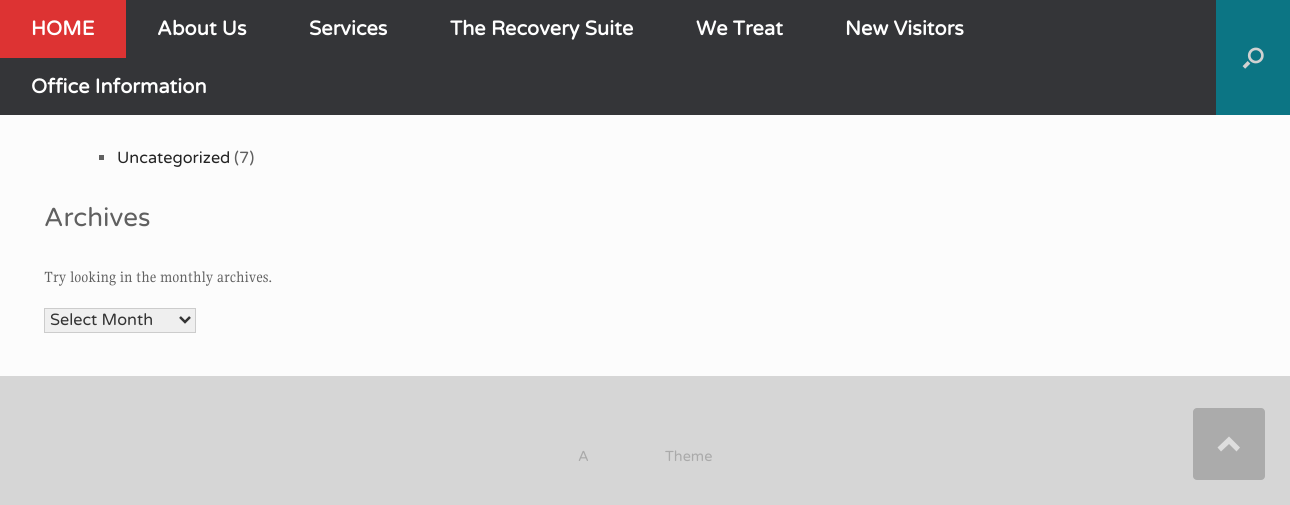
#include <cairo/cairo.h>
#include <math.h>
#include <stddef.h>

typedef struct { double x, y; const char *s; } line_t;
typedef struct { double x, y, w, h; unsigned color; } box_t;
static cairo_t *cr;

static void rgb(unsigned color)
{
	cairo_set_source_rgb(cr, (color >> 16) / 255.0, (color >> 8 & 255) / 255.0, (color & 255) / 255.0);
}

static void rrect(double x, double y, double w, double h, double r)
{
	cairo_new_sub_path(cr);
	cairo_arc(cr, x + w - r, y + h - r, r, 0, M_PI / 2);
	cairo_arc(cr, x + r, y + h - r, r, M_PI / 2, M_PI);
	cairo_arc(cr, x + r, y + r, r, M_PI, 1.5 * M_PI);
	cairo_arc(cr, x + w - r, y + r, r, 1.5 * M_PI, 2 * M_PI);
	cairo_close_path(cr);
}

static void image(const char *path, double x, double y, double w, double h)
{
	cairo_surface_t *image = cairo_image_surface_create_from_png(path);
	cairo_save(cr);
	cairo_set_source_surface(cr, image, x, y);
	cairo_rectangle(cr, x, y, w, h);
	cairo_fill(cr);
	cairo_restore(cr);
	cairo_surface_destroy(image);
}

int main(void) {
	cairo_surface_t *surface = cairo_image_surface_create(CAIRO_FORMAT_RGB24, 1290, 505);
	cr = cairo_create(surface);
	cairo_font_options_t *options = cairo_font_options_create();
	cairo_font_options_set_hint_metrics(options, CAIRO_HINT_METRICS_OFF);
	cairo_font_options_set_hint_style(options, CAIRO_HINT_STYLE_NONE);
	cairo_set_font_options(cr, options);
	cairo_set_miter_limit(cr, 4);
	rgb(0xd6d6d6);
	cairo_paint(cr);
	{
		static const box_t items[] = {
			{0, 0, 1216, 115, 0x343538},
			{0, 0, 126, 58, 0xdd3333},
			{1216, 0, 74, 115, 0x0c7584},
		};
		for (size_t i = 0; i < sizeof items / sizeof *items; i++) {
			rgb(items[i].color);
			cairo_rectangle(cr, items[i].x, items[i].y, items[i].w, items[i].h);
			cairo_fill(cr);
		}
	}
	image("img/1.png", 1242, 47, 22, 22);
	rgb(0xfcfcfc);
	cairo_rectangle(cr, 0, 115, 1290, 261);
	cairo_fill(cr);
	rgb(0x606060);
	cairo_rectangle(cr, 99, 155, 5, 5);
	cairo_fill(cr);
	rgb(0xefefef);
	cairo_rectangle(cr, 44.5, 308.5, 151, 24);
	cairo_fill_preserve(cr);
	rgb(0xcccccc);
	cairo_set_line_width(cr, 1);
	cairo_stroke(cr);
	cairo_new_path(cr);
	cairo_move_to(cr, 180, 317);
	cairo_line_to(cr, 185, 322);
	cairo_line_to(cr, 190, 317);
	rgb(0x333333);
	cairo_set_line_width(cr, 2.5);
	cairo_stroke(cr);
	rgb(0xababab);
	rrect(1193, 408, 72, 72, 4);
	cairo_fill(cr);
	rgb(0xdedede);
	cairo_new_path(cr);
	cairo_move_to(cr, 1240, 447.5);
	cairo_line_to(cr, 1229, 436.5);
	cairo_line_to(cr, 1217.5, 447.5);
	cairo_line_to(cr, 1221, 451.5);
	cairo_line_to(cr, 1229, 444);
	cairo_line_to(cr, 1236.5, 451.5);
	cairo_close_path(cr);
	cairo_fill(cr);
	cairo_select_font_face(cr, "Varela Round", CAIRO_FONT_SLANT_NORMAL, CAIRO_FONT_WEIGHT_BOLD);
	cairo_set_font_size(cr, 20);
	rgb(0xffffff);
	{
		static const line_t items[] = {
			{31, 35, "HOME"},
			{157, 35, "About Us"},
			{309, 35, "Services"},
			{450, 35, "The Recovery Suite"},
			{696, 35, "We Treat"},
			{845, 35, "New Visitors"},
			{31, 93, "Office Information"},
		};
		for (size_t i = 0; i < sizeof items / sizeof *items; i++) {
			cairo_move_to(cr, items[i].x, items[i].y);
			cairo_show_text(cr, items[i].s);
		}
	}
	cairo_select_font_face(cr, "Varela Round", CAIRO_FONT_SLANT_NORMAL, CAIRO_FONT_WEIGHT_NORMAL);
	cairo_set_font_size(cr, 16.25);
	rgb(0x232323);
	cairo_move_to(cr, 117, 163);
	cairo_show_text(cr, "Uncategorized");
	rgb(0x606060);
	cairo_move_to(cr, 234, 163);
	cairo_show_text(cr, "(7)");
	cairo_set_font_size(cr, 26);
	cairo_move_to(cr, 44, 226);
	cairo_show_text(cr, "Archives");
	cairo_select_font_face(cr, "Gupter", CAIRO_FONT_SLANT_NORMAL, CAIRO_FONT_WEIGHT_NORMAL);
	cairo_set_font_size(cr, 16.25);
	cairo_move_to(cr, 44, 282);
	cairo_show_text(cr, "Try looking in the monthly archives.");
	cairo_select_font_face(cr, "Varela Round", CAIRO_FONT_SLANT_NORMAL, CAIRO_FONT_WEIGHT_NORMAL);
	rgb(0x333333);
	cairo_move_to(cr, 50, 325);
	cairo_show_text(cr, "Select Month");
	cairo_set_font_size(cr, 14.5);
	rgb(0xaaaaaa);
	cairo_move_to(cr, 578, 461);
	cairo_show_text(cr, "A");
	cairo_move_to(cr, 665, 461);
	cairo_show_text(cr, "Theme");
	cairo_surface_write_to_png(surface, "page.png");
	cairo_font_options_destroy(options);
	cairo_destroy(cr);
	cairo_surface_destroy(surface);
	return 0;
}
